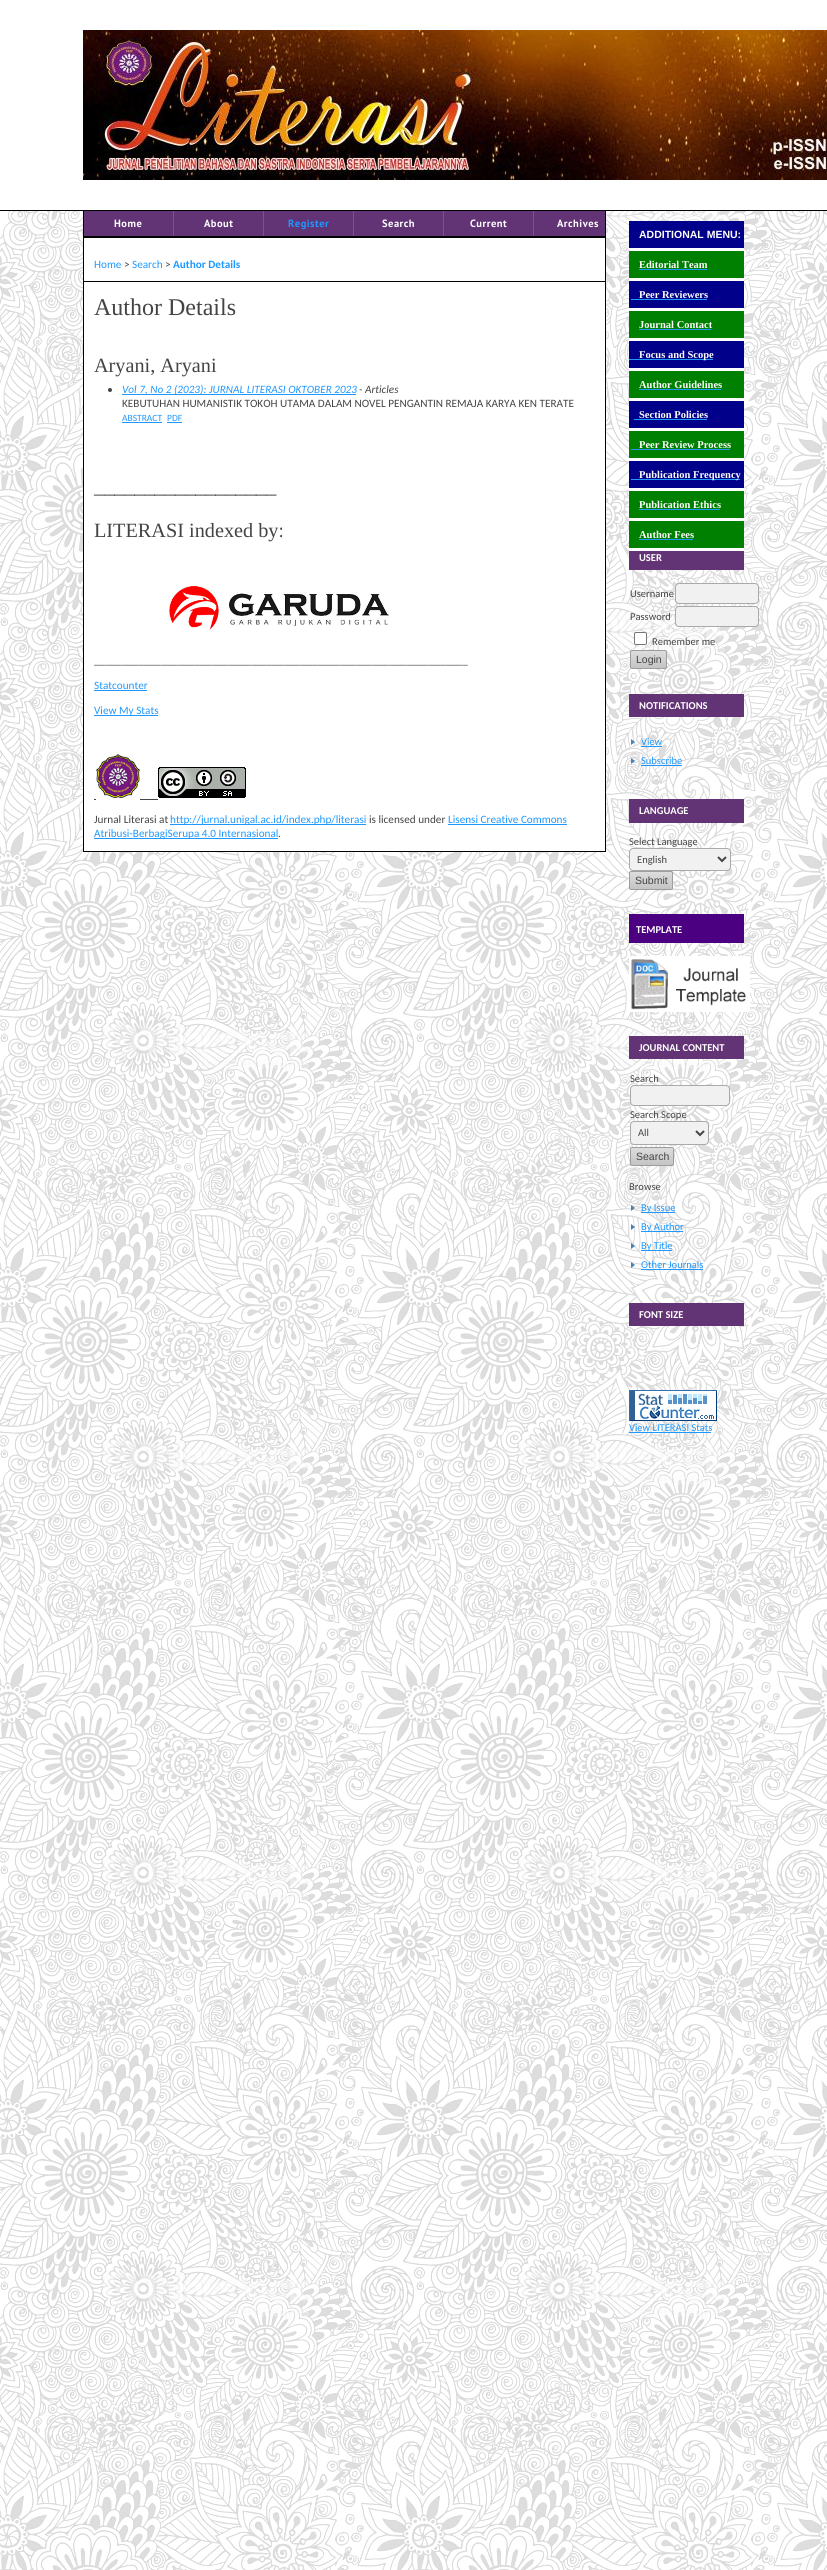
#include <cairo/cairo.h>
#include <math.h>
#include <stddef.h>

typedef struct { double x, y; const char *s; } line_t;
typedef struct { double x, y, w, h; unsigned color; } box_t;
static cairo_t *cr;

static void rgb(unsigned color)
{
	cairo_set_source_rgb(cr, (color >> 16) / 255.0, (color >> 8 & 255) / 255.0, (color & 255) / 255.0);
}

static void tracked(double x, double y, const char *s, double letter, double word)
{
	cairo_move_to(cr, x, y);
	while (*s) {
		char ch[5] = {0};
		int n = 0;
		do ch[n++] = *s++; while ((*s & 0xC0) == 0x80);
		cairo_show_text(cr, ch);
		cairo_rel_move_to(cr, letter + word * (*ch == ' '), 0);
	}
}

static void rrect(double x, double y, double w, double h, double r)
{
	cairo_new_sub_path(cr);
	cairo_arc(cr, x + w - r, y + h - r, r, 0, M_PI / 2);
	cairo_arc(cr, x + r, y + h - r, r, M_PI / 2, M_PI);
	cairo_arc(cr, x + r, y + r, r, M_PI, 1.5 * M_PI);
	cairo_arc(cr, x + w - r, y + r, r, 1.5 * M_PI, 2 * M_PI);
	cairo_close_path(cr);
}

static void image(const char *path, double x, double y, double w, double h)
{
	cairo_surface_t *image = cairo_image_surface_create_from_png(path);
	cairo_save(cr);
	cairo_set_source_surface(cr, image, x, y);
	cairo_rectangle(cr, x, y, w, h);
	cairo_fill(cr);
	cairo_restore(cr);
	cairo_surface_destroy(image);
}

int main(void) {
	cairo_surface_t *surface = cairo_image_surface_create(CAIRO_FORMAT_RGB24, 827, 2570);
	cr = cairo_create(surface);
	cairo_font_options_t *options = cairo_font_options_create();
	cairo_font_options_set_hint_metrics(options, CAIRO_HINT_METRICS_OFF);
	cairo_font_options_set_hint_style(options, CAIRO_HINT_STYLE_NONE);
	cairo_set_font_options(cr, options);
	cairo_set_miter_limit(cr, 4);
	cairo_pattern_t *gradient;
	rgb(0xffffff);
	cairo_paint(cr);
	image("img/1.png", 0, 211, 827, 2359);
	rgb(0x000000);
	cairo_rectangle(cr, 0, 210, 827, 1);
	cairo_fill(cr);
	image("img/2.png", 83, 30, 744, 150);
	{
		static const box_t items[] = {
			{84, 238, 521, 613, 0xffffff},
			{605, 211, 1, 641, 0x000000},
			{83, 851, 523, 1, 0x000000},
			{83, 211, 1, 641, 0x000000},
			{84, 211, 521, 25, 0x633475},
			{84, 236, 521, 2, 0x000000},
			{173, 211, 1, 25, 0x576979},
			{263, 211, 1, 25, 0x576979},
			{353, 211, 1, 25, 0x576979},
			{443, 211, 1, 25, 0x576979},
			{533, 211, 1, 25, 0x576979},
			{84, 281, 521, 1, 0x000000},
		};
		for (size_t i = 0; i < sizeof items / sizeof *items; i++) {
			rgb(items[i].color);
			cairo_rectangle(cr, items[i].x, items[i].y, items[i].w, items[i].h);
			cairo_fill(cr);
		}
	}
	rgb(0x444444);
	cairo_arc(cr, 110, 390, 2, 0, 2 * M_PI);
	cairo_fill(cr);
	{
		static const box_t items[] = {
			{122, 394, 234, 1, 0x1e98ff},
			{122, 422, 40, 1, 0x1e98ff},
			{167, 422, 15, 1, 0x1e98ff},
		};
		for (size_t i = 0; i < sizeof items / sizeof *items; i++) {
			rgb(items[i].color);
			cairo_rectangle(cr, items[i].x, items[i].y, items[i].w, items[i].h);
			cairo_fill(cr);
		}
	}
	image("img/3.png", 167, 586, 222, 45);
	cairo_rectangle(cr, 94, 690, 53, 1);
	cairo_fill(cr);
	cairo_rectangle(cr, 94, 715, 64, 1);
	cairo_fill(cr);
	image("img/4.png", 96, 754, 44, 44);
	image("img/5.png", 158, 767, 88, 31);
	{
		static const box_t items[] = {
			{94, 799, 2, 1, 0x444444},
			{140, 799, 18, 1, 0x444444},
			{170, 824, 196, 1, 0x1e98ff},
			{448, 824, 119, 1, 0x1e98ff},
			{94, 838, 184, 1, 0x1e98ff},
			{629, 221, 115, 27, 0x00008b},
			{629, 248, 115, 3, 0xffffff},
			{629, 251, 115, 27, 0x008000},
			{629, 278, 115, 3, 0xffffff},
			{639, 269, 68, 1, 0x1e98ff},
			{629, 281, 115, 27, 0x00008b},
			{629, 308, 115, 3, 0xffffff},
			{631, 299, 76, 1, 0x1e98ff},
			{629, 311, 115, 27, 0x008000},
			{629, 338, 115, 3, 0xffffff},
			{639, 329, 72, 1, 0x1e98ff},
			{629, 341, 115, 27, 0x00008b},
			{629, 368, 115, 3, 0xffffff},
			{629, 359, 84, 1, 0x1e98ff},
			{629, 371, 115, 27, 0x008000},
			{629, 398, 115, 3, 0xffffff},
			{639, 389, 82, 1, 0x1e98ff},
			{629, 401, 115, 27, 0x00008b},
			{629, 428, 115, 3, 0xffffff},
			{634, 419, 73, 1, 0x1e98ff},
			{629, 431, 115, 27, 0x008000},
			{629, 458, 115, 3, 0xffffff},
			{631, 449, 99, 1, 0x1e98ff},
			{629, 461, 115, 27, 0x00008b},
			{629, 488, 115, 3, 0xffffff},
			{631, 479, 109, 1, 0x1e98ff},
			{629, 491, 115, 27, 0x008000},
			{629, 518, 115, 3, 0xffffff},
			{639, 509, 81, 1, 0x1e98ff},
			{629, 521, 115, 27, 0x008000},
			{629, 548, 115, 3, 0xffffff},
			{639, 539, 54, 1, 0x1e98ff},
			{629, 551, 115, 19, 0x633475},
		};
		for (size_t i = 0; i < sizeof items / sizeof *items; i++) {
			rgb(items[i].color);
			cairo_rectangle(cr, items[i].x, items[i].y, items[i].w, items[i].h);
			cairo_fill(cr);
		}
	}
	rgb(0xf1f1f1);
	rrect(675.5, 583.5, 83, 20, 3.5);
	cairo_fill_preserve(cr);
	rgb(0xaaaaaa);
	cairo_set_line_width(cr, 1);
	cairo_stroke(cr);
	rgb(0xf1f1f1);
	rrect(675.5, 606.5, 83, 20, 3.5);
	cairo_fill_preserve(cr);
	rgb(0xaaaaaa);
	cairo_stroke(cr);
	rgb(0xffffff);
	rrect(634.5, 632.5, 12, 12, 1.5);
	cairo_fill_preserve(cr);
	rgb(0x767676);
	cairo_stroke(cr);
	cairo_save(cr);
	rrect(630, 650, 37, 19, 2);
	cairo_clip(cr);
	gradient = cairo_pattern_create_linear(649, 651, 649, 668);
	cairo_pattern_add_color_stop_rgba(gradient, 0, 0.867, 0.867, 0.867, 1);
	cairo_pattern_add_color_stop_rgba(gradient, 1, 0.769, 0.769, 0.769, 1);
	cairo_set_source(cr, gradient);
	cairo_pattern_destroy(gradient);
	cairo_rectangle(cr, 630, 651, 37, 17);
	cairo_fill(cr);
	cairo_restore(cr);
	rrect(630.5, 650.5, 36, 18, 1.5);
	rgb(0x9d9d9d);
	cairo_stroke(cr);
	rgb(0x633475);
	cairo_rectangle(cr, 629, 694, 115, 23);
	cairo_fill(cr);
	rgb(0x4682b4);
	cairo_new_path(cr);
	cairo_move_to(cr, 631, 745);
	cairo_line_to(cr, 631, 739);
	cairo_line_to(cr, 635, 742);
	cairo_close_path(cr);
	cairo_move_to(cr, 631, 764);
	cairo_line_to(cr, 631, 758);
	cairo_line_to(cr, 635, 761);
	cairo_close_path(cr);
	cairo_fill(cr);
	{
		static const box_t items[] = {
			{641, 746, 21, 1, 0x1e98ff},
			{641, 765, 41, 1, 0x1e98ff},
			{629, 799, 115, 24, 0x633475},
		};
		for (size_t i = 0; i < sizeof items / sizeof *items; i++) {
			rgb(items[i].color);
			cairo_rectangle(cr, items[i].x, items[i].y, items[i].w, items[i].h);
			cairo_fill(cr);
		}
	}
	rgb(0xf1f1f1);
	rrect(629.5, 848.5, 101, 22, 3.5);
	cairo_fill_preserve(cr);
	rgb(0xaaaaaa);
	cairo_stroke(cr);
	cairo_new_path(cr);
	cairo_move_to(cr, 718, 857);
	cairo_line_to(cr, 722, 861);
	cairo_line_to(cr, 726, 857);
	rgb(0x444444);
	cairo_set_line_width(cr, 2);
	cairo_stroke(cr);
	cairo_save(cr);
	rrect(629, 871, 44, 19, 2);
	cairo_clip(cr);
	gradient = cairo_pattern_create_linear(651, 872, 651, 889);
	cairo_pattern_add_color_stop_rgba(gradient, 0, 0.867, 0.867, 0.867, 1);
	cairo_pattern_add_color_stop_rgba(gradient, 1, 0.769, 0.769, 0.769, 1);
	cairo_set_source(cr, gradient);
	cairo_pattern_destroy(gradient);
	cairo_rectangle(cr, 629, 872, 44, 17);
	cairo_fill(cr);
	cairo_restore(cr);
	rrect(629.5, 871.5, 43, 18, 1.5);
	rgb(0x9d9d9d);
	cairo_set_line_width(cr, 1);
	cairo_stroke(cr);
	rgb(0x4b0082);
	cairo_rectangle(cr, 629, 914, 115, 29);
	cairo_fill(cr);
	image("img/6.png", 629, 956, 121, 56);
	rgb(0x633475);
	cairo_rectangle(cr, 629, 1036, 115, 23);
	cairo_fill(cr);
	rgb(0xf1f1f1);
	rrect(630.5, 1085.5, 99, 20, 3.5);
	cairo_fill_preserve(cr);
	rgb(0xaaaaaa);
	cairo_stroke(cr);
	rgb(0xf1f1f1);
	rrect(630.5, 1121.5, 78, 23, 3.5);
	cairo_fill_preserve(cr);
	rgb(0xaaaaaa);
	cairo_stroke(cr);
	cairo_new_path(cr);
	cairo_move_to(cr, 696, 1131);
	cairo_line_to(cr, 700, 1135);
	cairo_line_to(cr, 704, 1131);
	rgb(0x444444);
	cairo_set_line_width(cr, 2);
	cairo_stroke(cr);
	cairo_save(cr);
	rrect(630, 1147, 44, 19, 2);
	cairo_clip(cr);
	gradient = cairo_pattern_create_linear(652, 1148, 652, 1165);
	cairo_pattern_add_color_stop_rgba(gradient, 0, 0.867, 0.867, 0.867, 1);
	cairo_pattern_add_color_stop_rgba(gradient, 1, 0.769, 0.769, 0.769, 1);
	cairo_set_source(cr, gradient);
	cairo_pattern_destroy(gradient);
	cairo_rectangle(cr, 630, 1148, 44, 17);
	cairo_fill(cr);
	cairo_restore(cr);
	rrect(630.5, 1147.5, 43, 18, 1.5);
	rgb(0x9d9d9d);
	cairo_set_line_width(cr, 1);
	cairo_stroke(cr);
	rgb(0x4682b4);
	cairo_new_path(cr);
	cairo_move_to(cr, 631, 1211);
	cairo_line_to(cr, 631, 1205);
	cairo_line_to(cr, 635, 1208);
	cairo_close_path(cr);
	cairo_move_to(cr, 631, 1230);
	cairo_line_to(cr, 631, 1224);
	cairo_line_to(cr, 635, 1227);
	cairo_close_path(cr);
	cairo_move_to(cr, 631, 1249);
	cairo_line_to(cr, 631, 1243);
	cairo_line_to(cr, 635, 1246);
	cairo_close_path(cr);
	cairo_move_to(cr, 631, 1268);
	cairo_line_to(cr, 631, 1262);
	cairo_line_to(cr, 635, 1265);
	cairo_close_path(cr);
	cairo_fill(cr);
	{
		static const box_t items[] = {
			{641, 1212, 34, 1, 0x1e98ff},
			{641, 1231, 42, 1, 0x1e98ff},
			{641, 1250, 31, 1, 0x1e98ff},
			{641, 1269, 62, 1, 0x1e98ff},
			{629, 1303, 115, 23, 0x633475},
		};
		for (size_t i = 0; i < sizeof items / sizeof *items; i++) {
			rgb(items[i].color);
			cairo_rectangle(cr, items[i].x, items[i].y, items[i].w, items[i].h);
			cairo_fill(cr);
		}
	}
	image("img/7.png", 629, 1390, 88, 31);
	rgb(0x1e98ff);
	cairo_rectangle(cr, 629, 1432, 82, 1);
	cairo_fill(cr);
	cairo_select_font_face(cr, "PT Sans", CAIRO_FONT_SLANT_NORMAL, CAIRO_FONT_WEIGHT_BOLD);
	cairo_set_font_size(cr, 10.5);
	rgb(0xffffff);
	tracked(114, 227, "Home", 0.5, 0);
	tracked(204, 227, "About", 0.5, 0);
	rgb(0x1e98ff);
	tracked(288, 227, "Register", 0.5, 0);
	rgb(0xffffff);
	{
		static const line_t items[] = {
			{382, 227, "Search"},
			{470, 227, "Current"},
			{557, 227, "Archives"},
		};
		for (size_t i = 0; i < sizeof items / sizeof *items; i++) {
			tracked(items[i].x, items[i].y, items[i].s, 0.5, 0);
		}
	}
	cairo_select_font_face(cr, "Carlito", CAIRO_FONT_SLANT_NORMAL, CAIRO_FONT_WEIGHT_NORMAL);
	cairo_set_font_size(cr, 11.2);
	rgb(0x1e98ff);
	cairo_move_to(cr, 94, 268);
	cairo_show_text(cr, "Home");
	rgb(0x444444);
	cairo_move_to(cr, 124, 268);
	cairo_show_text(cr, ">");
	rgb(0x1e98ff);
	cairo_move_to(cr, 132, 268);
	cairo_show_text(cr, "Search");
	rgb(0x444444);
	cairo_move_to(cr, 165, 268);
	cairo_show_text(cr, ">");
	cairo_select_font_face(cr, "Carlito", CAIRO_FONT_SLANT_NORMAL, CAIRO_FONT_WEIGHT_BOLD);
	rgb(0x1e98ff);
	cairo_move_to(cr, 173, 268);
	cairo_show_text(cr, "Author Details");
	cairo_select_font_face(cr, "Liberation Serif", CAIRO_FONT_SLANT_NORMAL, CAIRO_FONT_WEIGHT_NORMAL);
	cairo_set_font_size(cr, 24);
	rgb(0x444444);
	cairo_move_to(cr, 94, 315);
	cairo_show_text(cr, "Author Details");
	cairo_set_font_size(cr, 20.25);
	cairo_move_to(cr, 94, 372);
	cairo_show_text(cr, "Aryani, Aryani");
	cairo_select_font_face(cr, "Carlito", CAIRO_FONT_SLANT_ITALIC, CAIRO_FONT_WEIGHT_NORMAL);
	cairo_set_font_size(cr, 11.2);
	rgb(0x1e98ff);
	cairo_move_to(cr, 122, 393);
	cairo_show_text(cr, "Vol 7, No 2 (2023): JURNAL LITERASI OKTOBER 2023");
	rgb(0x444444);
	cairo_move_to(cr, 359, 393);
	cairo_show_text(cr, "- Articles");
	cairo_select_font_face(cr, "Carlito", CAIRO_FONT_SLANT_NORMAL, CAIRO_FONT_WEIGHT_NORMAL);
	cairo_move_to(cr, 122, 407);
	cairo_show_text(cr, "KEBUTUHAN HUMANISTIK TOKOH UTAMA DALAM NOVEL PENGANTIN REMAJA KARYA KEN TERATE");
	cairo_set_font_size(cr, 9.5);
	rgb(0x1e98ff);
	cairo_move_to(cr, 122, 421);
	cairo_show_text(cr, "ABSTRACT");
	cairo_move_to(cr, 167, 421);
	cairo_show_text(cr, "PDF");
	cairo_select_font_face(cr, "Liberation Serif", CAIRO_FONT_SLANT_NORMAL, CAIRO_FONT_WEIGHT_NORMAL);
	cairo_set_font_size(cr, 20.25);
	rgb(0x444444);
	cairo_move_to(cr, 94, 493);
	cairo_show_text(cr, "__________________");
	cairo_move_to(cr, 94, 537);
	cairo_show_text(cr, "LITERASI indexed by:");
	cairo_select_font_face(cr, "Carlito", CAIRO_FONT_SLANT_NORMAL, CAIRO_FONT_WEIGHT_NORMAL);
	cairo_set_font_size(cr, 11.2);
	cairo_move_to(cr, 94, 664);
	cairo_show_text(cr, "___________________________________________________________________");
	rgb(0x1e98ff);
	cairo_move_to(cr, 94, 689);
	cairo_show_text(cr, "Statcounter");
	cairo_move_to(cr, 94, 714);
	cairo_show_text(cr, "View My Stats");
	rgb(0x444444);
	cairo_move_to(cr, 94, 823);
	cairo_show_text(cr, "Jurnal Literasi at");
	rgb(0x1e98ff);
	cairo_move_to(cr, 170, 823);
	cairo_show_text(cr, "http://jurnal.unigal.ac.id/index.php/literasi");
	rgb(0x444444);
	cairo_move_to(cr, 369, 823);
	cairo_show_text(cr, "is licensed under");
	rgb(0x1e98ff);
	cairo_move_to(cr, 448, 823);
	cairo_show_text(cr, "Lisensi Creative Commons");
	cairo_move_to(cr, 94, 837);
	cairo_show_text(cr, "Atribusi-BerbagiSerupa 4.0 Internasional");
	rgb(0x444444);
	cairo_move_to(cr, 278, 837);
	cairo_show_text(cr, ".");
	cairo_select_font_face(cr, "Liberation Sans", CAIRO_FONT_SLANT_NORMAL, CAIRO_FONT_WEIGHT_BOLD);
	cairo_set_font_size(cr, 10.5);
	rgb(0xffffff);
	cairo_move_to(cr, 639, 238);
	cairo_show_text(cr, "ADDITIONAL MENU:");
	cairo_select_font_face(cr, "Liberation Serif", CAIRO_FONT_SLANT_NORMAL, CAIRO_FONT_WEIGHT_BOLD);
	{
		static const line_t items[] = {
			{639, 268, "Editorial Team"},
			{639, 298, "Peer Reviewers"},
			{639, 328, "Journal Contact"},
			{639, 358, "Focus and Scope"},
			{639, 388, "Author Guidelines"},
			{639, 418, "Section Policies"},
			{639, 448, "Peer Review Process"},
			{639, 478, "Publication Frequency"},
			{639, 508, "Publication Ethics"},
			{639, 538, "Author Fees"},
		};
		for (size_t i = 0; i < sizeof items / sizeof *items; i++) {
			cairo_move_to(cr, items[i].x, items[i].y);
			cairo_show_text(cr, items[i].s);
		}
	}
	cairo_select_font_face(cr, "Carlito", CAIRO_FONT_SLANT_NORMAL, CAIRO_FONT_WEIGHT_BOLD);
	cairo_move_to(cr, 639, 561);
	cairo_show_text(cr, "USER");
	cairo_select_font_face(cr, "Carlito", CAIRO_FONT_SLANT_NORMAL, CAIRO_FONT_WEIGHT_NORMAL);
	rgb(0x444444);
	{
		static const line_t items[] = {
			{630, 597, "Username"},
			{630, 620, "Password"},
			{652, 645, "Remember me"},
		};
		for (size_t i = 0; i < sizeof items / sizeof *items; i++) {
			cairo_move_to(cr, items[i].x, items[i].y);
			cairo_show_text(cr, items[i].s);
		}
	}
	cairo_select_font_face(cr, "Liberation Sans", CAIRO_FONT_SLANT_NORMAL, CAIRO_FONT_WEIGHT_NORMAL);
	cairo_move_to(cr, 636, 663);
	cairo_show_text(cr, "Login");
	cairo_select_font_face(cr, "Carlito", CAIRO_FONT_SLANT_NORMAL, CAIRO_FONT_WEIGHT_BOLD);
	rgb(0xffffff);
	cairo_move_to(cr, 639, 709);
	cairo_show_text(cr, "NOTIFICATIONS");
	cairo_select_font_face(cr, "Carlito", CAIRO_FONT_SLANT_NORMAL, CAIRO_FONT_WEIGHT_NORMAL);
	rgb(0x1e98ff);
	cairo_move_to(cr, 641, 745);
	cairo_show_text(cr, "View");
	cairo_move_to(cr, 641, 764);
	cairo_show_text(cr, "Subscribe");
	cairo_select_font_face(cr, "Carlito", CAIRO_FONT_SLANT_NORMAL, CAIRO_FONT_WEIGHT_BOLD);
	rgb(0xffffff);
	cairo_move_to(cr, 639, 814);
	cairo_show_text(cr, "LANGUAGE");
	cairo_select_font_face(cr, "Carlito", CAIRO_FONT_SLANT_NORMAL, CAIRO_FONT_WEIGHT_NORMAL);
	rgb(0x444444);
	cairo_move_to(cr, 629, 845);
	cairo_show_text(cr, "Select Language");
	cairo_move_to(cr, 637, 863);
	cairo_show_text(cr, "English");
	cairo_select_font_face(cr, "Liberation Sans", CAIRO_FONT_SLANT_NORMAL, CAIRO_FONT_WEIGHT_NORMAL);
	cairo_move_to(cr, 635, 884);
	cairo_show_text(cr, "Submit");
	cairo_select_font_face(cr, "Carlito", CAIRO_FONT_SLANT_NORMAL, CAIRO_FONT_WEIGHT_BOLD);
	rgb(0xffffff);
	cairo_move_to(cr, 636, 933);
	cairo_show_text(cr, "TEMPLATE");
	cairo_move_to(cr, 639, 1051);
	cairo_show_text(cr, "JOURNAL CONTENT");
	cairo_select_font_face(cr, "Carlito", CAIRO_FONT_SLANT_NORMAL, CAIRO_FONT_WEIGHT_NORMAL);
	rgb(0x444444);
	{
		static const line_t items[] = {
			{630, 1082, "Search"},
			{630, 1118, "Search Scope"},
			{638, 1136, "All"},
		};
		for (size_t i = 0; i < sizeof items / sizeof *items; i++) {
			cairo_move_to(cr, items[i].x, items[i].y);
			cairo_show_text(cr, items[i].s);
		}
	}
	cairo_select_font_face(cr, "Liberation Sans", CAIRO_FONT_SLANT_NORMAL, CAIRO_FONT_WEIGHT_NORMAL);
	cairo_move_to(cr, 636, 1160);
	cairo_show_text(cr, "Search");
	cairo_select_font_face(cr, "Carlito", CAIRO_FONT_SLANT_NORMAL, CAIRO_FONT_WEIGHT_NORMAL);
	cairo_move_to(cr, 629, 1190);
	cairo_show_text(cr, "Browse");
	rgb(0x1e98ff);
	{
		static const line_t items[] = {
			{641, 1211, "By Issue"},
			{641, 1230, "By Author"},
			{641, 1249, "By Title"},
			{641, 1268, "Other Journals"},
		};
		for (size_t i = 0; i < sizeof items / sizeof *items; i++) {
			cairo_move_to(cr, items[i].x, items[i].y);
			cairo_show_text(cr, items[i].s);
		}
	}
	cairo_select_font_face(cr, "Carlito", CAIRO_FONT_SLANT_NORMAL, CAIRO_FONT_WEIGHT_BOLD);
	rgb(0xffffff);
	cairo_move_to(cr, 639, 1318);
	cairo_show_text(cr, "FONT SIZE");
	cairo_select_font_face(cr, "Carlito", CAIRO_FONT_SLANT_NORMAL, CAIRO_FONT_WEIGHT_NORMAL);
	rgb(0x1e98ff);
	cairo_move_to(cr, 629, 1431);
	cairo_show_text(cr, "View LITERASI Stats");
	cairo_surface_write_to_png(surface, "page.png");
	cairo_font_options_destroy(options);
	cairo_destroy(cr);
	cairo_surface_destroy(surface);
	return 0;
}
